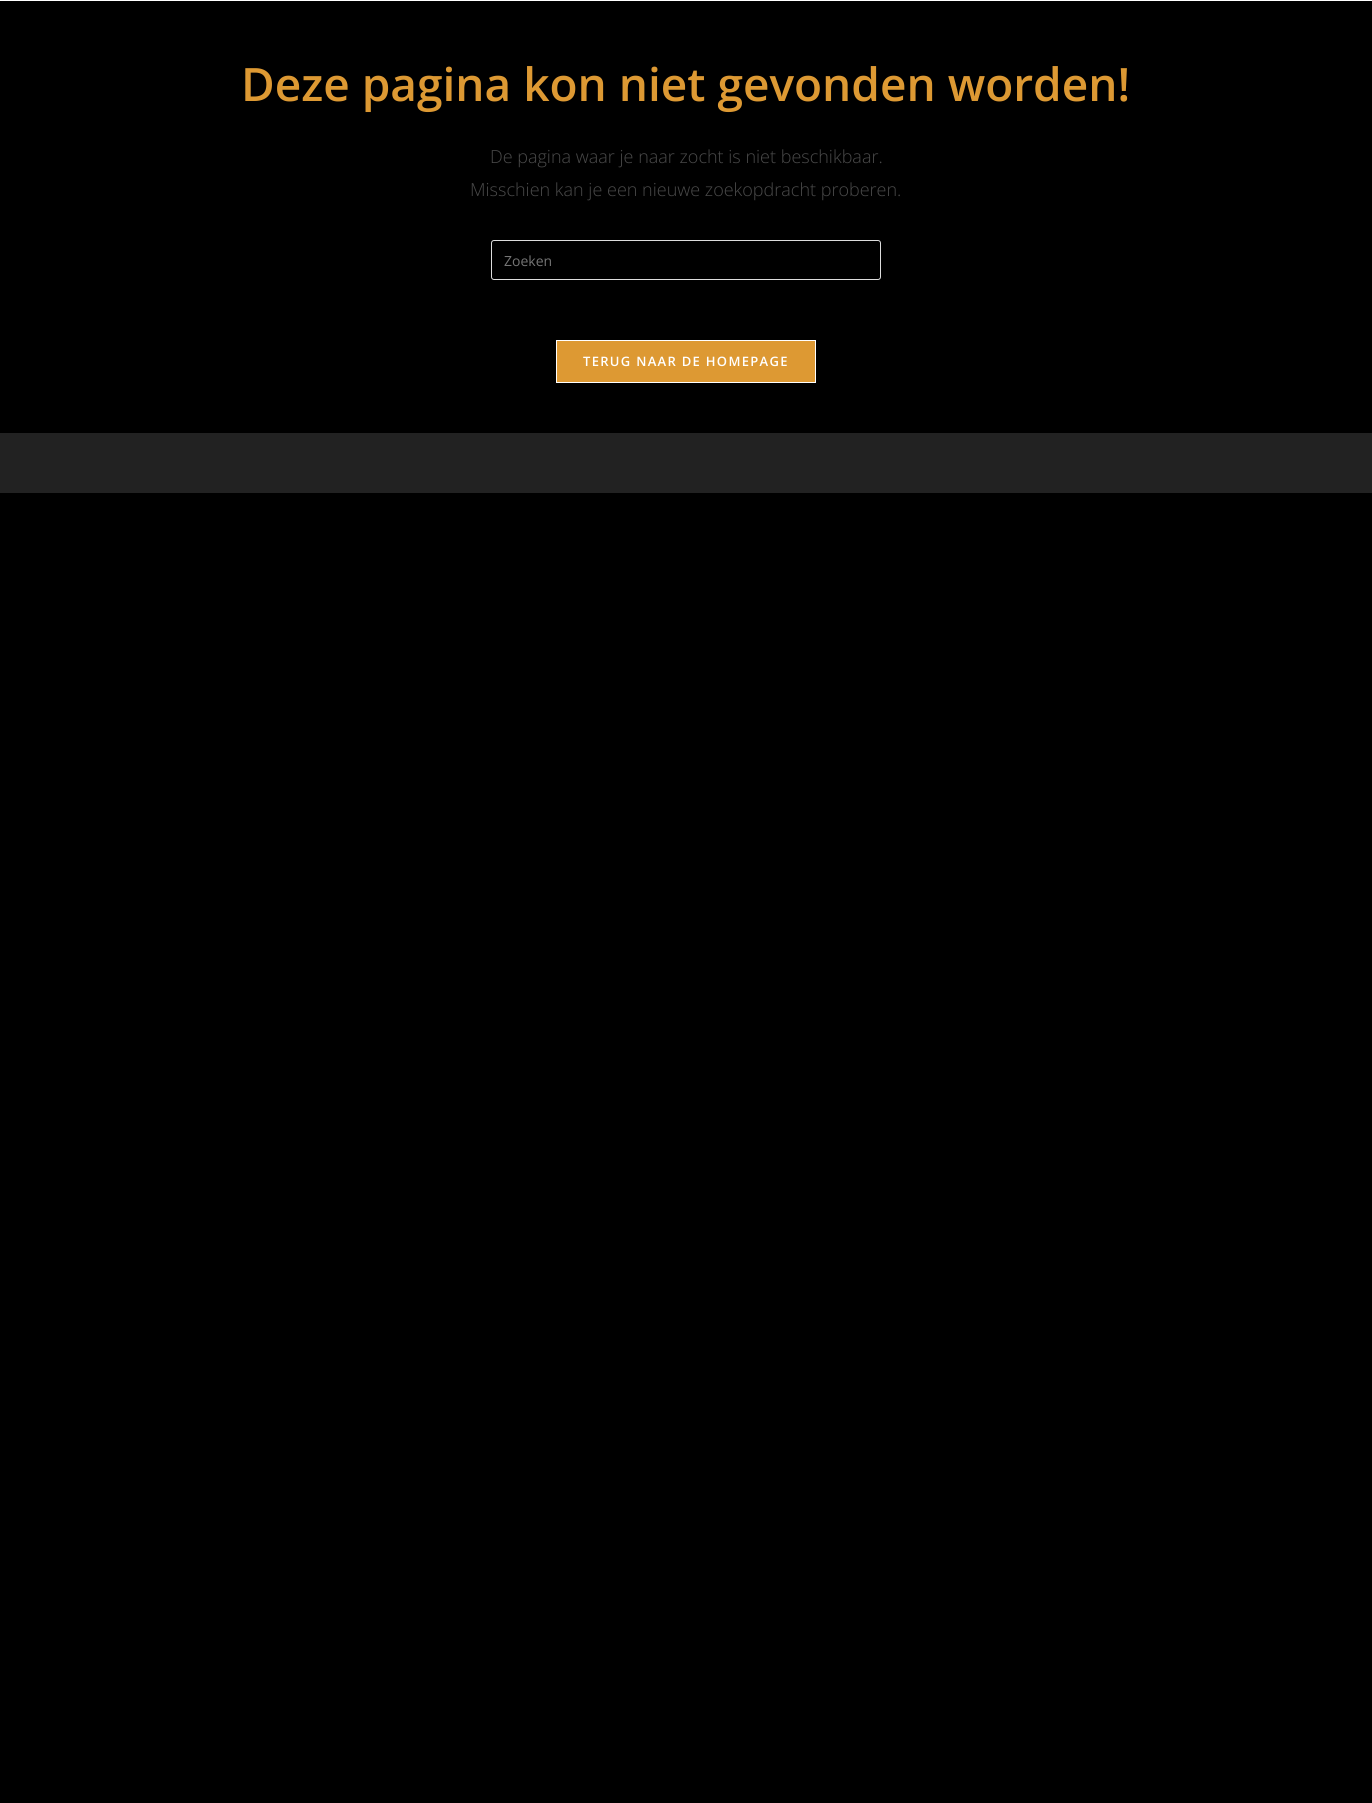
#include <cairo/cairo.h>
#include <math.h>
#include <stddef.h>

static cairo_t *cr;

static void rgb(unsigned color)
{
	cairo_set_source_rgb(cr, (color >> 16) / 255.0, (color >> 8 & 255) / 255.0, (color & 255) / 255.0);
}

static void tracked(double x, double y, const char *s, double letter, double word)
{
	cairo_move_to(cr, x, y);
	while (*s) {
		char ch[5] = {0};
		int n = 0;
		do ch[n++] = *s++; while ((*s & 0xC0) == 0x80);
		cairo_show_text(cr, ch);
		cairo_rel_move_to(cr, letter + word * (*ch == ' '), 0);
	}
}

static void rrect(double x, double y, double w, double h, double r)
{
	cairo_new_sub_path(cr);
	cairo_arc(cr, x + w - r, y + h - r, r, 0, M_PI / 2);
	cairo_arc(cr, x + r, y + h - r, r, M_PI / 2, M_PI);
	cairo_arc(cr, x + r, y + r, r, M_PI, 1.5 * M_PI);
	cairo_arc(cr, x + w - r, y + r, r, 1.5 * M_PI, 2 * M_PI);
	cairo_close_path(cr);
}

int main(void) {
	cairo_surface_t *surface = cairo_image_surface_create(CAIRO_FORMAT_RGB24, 1372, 1803);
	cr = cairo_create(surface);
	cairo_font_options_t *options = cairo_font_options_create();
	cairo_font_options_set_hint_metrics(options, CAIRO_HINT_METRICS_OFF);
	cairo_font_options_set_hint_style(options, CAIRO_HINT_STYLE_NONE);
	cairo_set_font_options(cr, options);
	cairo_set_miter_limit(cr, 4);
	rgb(0x000000);
	cairo_paint(cr);
	rgb(0xffffff);
	cairo_rectangle(cr, 0, 0, 1372, 1);
	cairo_fill(cr);
	rrect(491.5, 240.5, 389, 39, 2.5);
	rgb(0xdddddd);
	cairo_set_line_width(cr, 1);
	cairo_stroke(cr);
	rgb(0xdd9933);
	cairo_rectangle(cr, 556.5, 340.5, 259, 42);
	cairo_fill_preserve(cr);
	rgb(0xffffff);
	cairo_stroke(cr);
	rgb(0x222222);
	cairo_rectangle(cr, 0, 433, 1372, 60);
	cairo_fill(cr);
	cairo_select_font_face(cr, "Open Sans SemiBold", CAIRO_FONT_SLANT_NORMAL, CAIRO_FONT_WEIGHT_NORMAL);
	cairo_set_font_size(cr, 46);
	rgb(0xdd9933);
	cairo_move_to(cr, 241, 101);
	cairo_show_text(cr, "Deze pagina kon niet gevonden worden!");
	cairo_select_font_face(cr, "Open Sans Light", CAIRO_FONT_SLANT_NORMAL, CAIRO_FONT_WEIGHT_NORMAL);
	cairo_set_font_size(cr, 18);
	rgb(0x4a4a4a);
	cairo_move_to(cr, 490, 163);
	cairo_show_text(cr, "De pagina waar je naar zocht is niet beschikbaar.");
	cairo_move_to(cr, 470, 196);
	cairo_show_text(cr, "Misschien kan je een nieuwe zoekopdracht proberen.");
	cairo_select_font_face(cr, "Open Sans", CAIRO_FONT_SLANT_NORMAL, CAIRO_FONT_WEIGHT_NORMAL);
	cairo_set_font_size(cr, 14);
	rgb(0x757575);
	cairo_move_to(cr, 504, 266);
	cairo_show_text(cr, "Zoeken");
	cairo_select_font_face(cr, "Open Sans SemiBold", CAIRO_FONT_SLANT_NORMAL, CAIRO_FONT_WEIGHT_NORMAL);
	cairo_set_font_size(cr, 13);
	rgb(0xffffff);
	tracked(583, 366, "TERUG NAAR DE HOMEPAGE", 1.3, 0);
	cairo_surface_write_to_png(surface, "page.png");
	cairo_font_options_destroy(options);
	cairo_destroy(cr);
	cairo_surface_destroy(surface);
	return 0;
}
